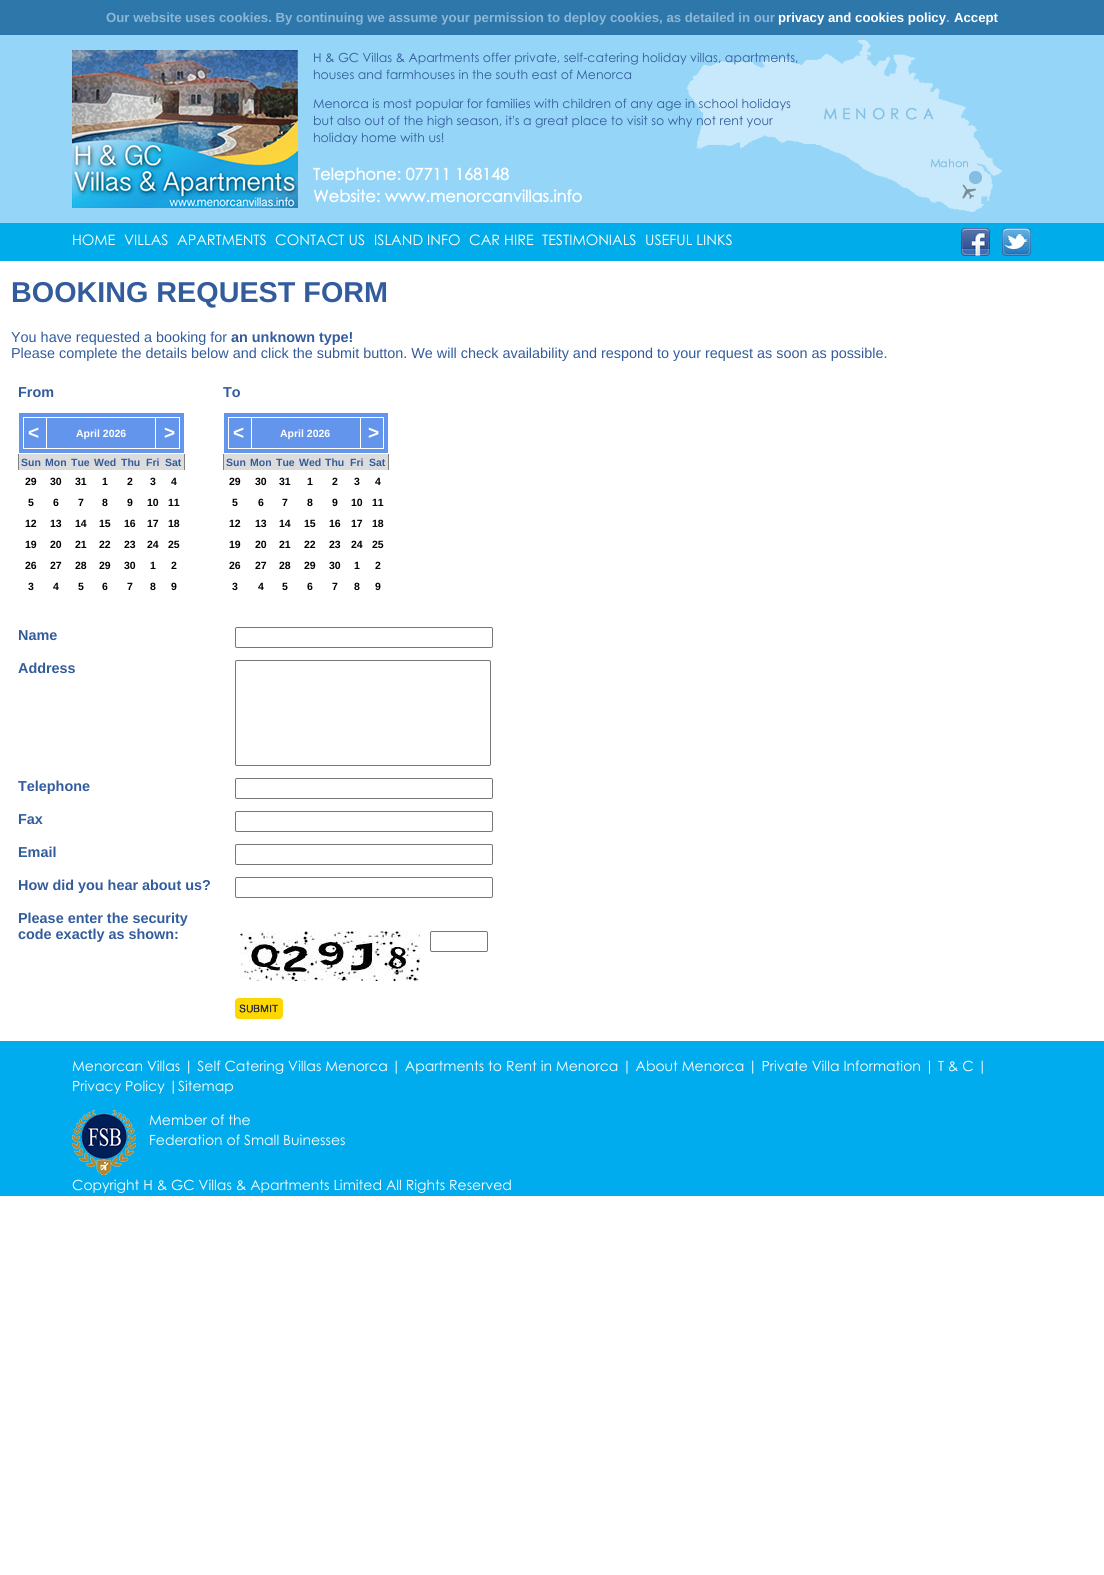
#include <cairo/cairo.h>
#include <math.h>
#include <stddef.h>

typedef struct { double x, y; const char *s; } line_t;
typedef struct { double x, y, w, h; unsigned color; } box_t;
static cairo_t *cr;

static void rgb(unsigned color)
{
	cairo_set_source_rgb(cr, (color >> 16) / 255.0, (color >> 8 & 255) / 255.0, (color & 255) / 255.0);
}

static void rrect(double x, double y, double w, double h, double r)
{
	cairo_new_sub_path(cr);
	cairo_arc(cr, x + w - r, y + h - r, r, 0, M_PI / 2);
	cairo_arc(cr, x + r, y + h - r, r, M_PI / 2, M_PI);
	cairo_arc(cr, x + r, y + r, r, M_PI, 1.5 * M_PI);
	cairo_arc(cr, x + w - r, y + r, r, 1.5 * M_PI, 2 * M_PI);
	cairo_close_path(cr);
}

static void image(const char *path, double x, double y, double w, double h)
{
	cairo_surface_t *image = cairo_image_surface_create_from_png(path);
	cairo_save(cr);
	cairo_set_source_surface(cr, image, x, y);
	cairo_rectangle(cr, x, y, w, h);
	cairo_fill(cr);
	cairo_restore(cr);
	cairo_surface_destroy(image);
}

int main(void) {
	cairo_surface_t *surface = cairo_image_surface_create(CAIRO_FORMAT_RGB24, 1104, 1575);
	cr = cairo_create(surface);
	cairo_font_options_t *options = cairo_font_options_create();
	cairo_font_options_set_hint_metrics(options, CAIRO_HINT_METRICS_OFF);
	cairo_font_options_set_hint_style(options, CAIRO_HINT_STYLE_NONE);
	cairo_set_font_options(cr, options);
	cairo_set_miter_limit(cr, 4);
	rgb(0xffffff);
	cairo_paint(cr);
	rgb(0x2e77aa);
	cairo_rectangle(cr, 0, 0, 1104, 35);
	cairo_fill(cr);
	rgb(0x95d5f7);
	cairo_rectangle(cr, 0, 35, 1104, 188);
	cairo_fill(cr);
	image("img/1.png", 72, 50, 226, 158);
	image("img/2.png", 686, 40, 316, 172);
	rgb(0x00adea);
	cairo_rectangle(cr, 0, 223, 1104, 38);
	cairo_fill(cr);
	image("img/3.png", 961, 228, 29, 28);
	image("img/4.png", 1002, 228, 29, 28);
	{
		static const box_t items[] = {
			{184, 454, 1, 16, 0x808080},
			{18, 454, 1, 16, 0x808080},
			{19, 413, 165, 40, 0x6495ed},
			{155, 417, 25, 1, 0xffffff},
			{179, 417, 1, 32, 0xffffff},
			{155, 448, 25, 1, 0xffffff},
			{155, 417, 1, 32, 0xffffff},
			{46, 417, 110, 1, 0xffffff},
			{46, 448, 110, 1, 0xffffff},
			{46, 417, 1, 32, 0xffffff},
			{23, 417, 24, 1, 0xffffff},
			{23, 448, 24, 1, 0xffffff},
			{23, 417, 1, 32, 0xffffff},
			{19, 454, 165, 16, 0xdcdcdc},
			{388, 454, 1, 16, 0x808080},
			{223, 454, 1, 16, 0x808080},
			{224, 413, 164, 40, 0x6495ed},
			{360, 417, 24, 1, 0xffffff},
			{383, 417, 1, 32, 0xffffff},
			{360, 448, 24, 1, 0xffffff},
			{360, 417, 1, 32, 0xffffff},
			{251, 417, 110, 1, 0xffffff},
			{251, 448, 110, 1, 0xffffff},
			{251, 417, 1, 32, 0xffffff},
			{228, 417, 24, 1, 0xffffff},
			{228, 448, 24, 1, 0xffffff},
			{228, 417, 1, 32, 0xffffff},
			{224, 454, 164, 16, 0xdcdcdc},
		};
		for (size_t i = 0; i < sizeof items / sizeof *items; i++) {
			rgb(items[i].color);
			cairo_rectangle(cr, items[i].x, items[i].y, items[i].w, items[i].h);
			cairo_fill(cr);
		}
	}
	rrect(235.5, 627.5, 257, 20, 1.5);
	rgb(0x767676);
	cairo_set_line_width(cr, 1);
	cairo_stroke(cr);
	rrect(235.5, 660.5, 255, 105, 1.5);
	cairo_stroke(cr);
	rrect(235.5, 778.5, 257, 20, 1.5);
	cairo_stroke(cr);
	rrect(235.5, 811.5, 257, 20, 1.5);
	cairo_stroke(cr);
	rrect(235.5, 844.5, 257, 20, 1.5);
	cairo_stroke(cr);
	rrect(235.5, 877.5, 257, 20, 1.5);
	cairo_stroke(cr);
	image("img/5.png", 240, 931, 180, 50);
	rrect(430.5, 931.5, 57, 20, 1.5);
	cairo_stroke(cr);
	image("img/6.png", 235, 998, 48, 21);
	rgb(0x00aced);
	cairo_rectangle(cr, 0, 1041, 1104, 155);
	cairo_fill(cr);
	image("img/7.png", 72, 1110, 64, 65);
	cairo_select_font_face(cr, "Liberation Sans", CAIRO_FONT_SLANT_NORMAL, CAIRO_FONT_WEIGHT_BOLD);
	cairo_set_font_size(cr, 13.2);
	rgb(0x8cb7d7);
	cairo_move_to(cr, 106, 22);
	cairo_show_text(cr, "Our website uses cookies. By continuing we assume your permission to deploy cookies, as detailed in our");
	rgb(0xffffff);
	cairo_move_to(cr, 778, 22);
	cairo_show_text(cr, "privacy and cookies policy");
	rgb(0x8cb7d7);
	cairo_move_to(cr, 946, 22);
	cairo_show_text(cr, ".");
	rgb(0xffffff);
	cairo_move_to(cr, 954, 22);
	cairo_show_text(cr, "Accept");
	cairo_select_font_face(cr, "Century Gothic", CAIRO_FONT_SLANT_NORMAL, CAIRO_FONT_WEIGHT_NORMAL);
	cairo_set_font_size(cr, 12.5);
	rgb(0x335c9c);
	{
		static const line_t items[] = {
			{313, 62, "H & GC Villas & Apartments offer private, self-catering holiday villas, apartments,"},
			{313, 79, "houses and farmhouses in the south east of Menorca"},
			{313, 108, "Menorca is most popular for families with children of any age in school holidays"},
			{313, 125, "but also out of the high season, it's a great place to visit so why not rent your"},
			{313, 142, "holiday home with us!"},
		};
		for (size_t i = 0; i < sizeof items / sizeof *items; i++) {
			cairo_move_to(cr, items[i].x, items[i].y);
			cairo_show_text(cr, items[i].s);
		}
	}
	cairo_select_font_face(cr, "Century Gothic", CAIRO_FONT_SLANT_NORMAL, CAIRO_FONT_WEIGHT_BOLD);
	cairo_set_font_size(cr, 16.25);
	rgb(0xffffff);
	cairo_move_to(cr, 313, 180);
	cairo_show_text(cr, "Telephone: 07711 168148");
	cairo_move_to(cr, 313, 202);
	cairo_show_text(cr, "Website: www.menorcanvillas.info");
	cairo_select_font_face(cr, "Century Gothic", CAIRO_FONT_SLANT_NORMAL, CAIRO_FONT_WEIGHT_NORMAL);
	cairo_set_font_size(cr, 14.4);
	{
		static const line_t items[] = {
			{72, 245, "HOME"},
			{124, 245, "VILLAS"},
			{177, 245, "APARTMENTS"},
			{275, 245, "CONTACT US"},
			{374, 245, "ISLAND INFO"},
			{469, 245, "CAR HIRE"},
			{542, 245, "TESTIMONIALS"},
			{645, 245, "USEFUL LINKS"},
		};
		for (size_t i = 0; i < sizeof items / sizeof *items; i++) {
			cairo_move_to(cr, items[i].x, items[i].y);
			cairo_show_text(cr, items[i].s);
		}
	}
	cairo_select_font_face(cr, "Liberation Sans", CAIRO_FONT_SLANT_NORMAL, CAIRO_FONT_WEIGHT_BOLD);
	cairo_set_font_size(cr, 28.75);
	rgb(0x335c9c);
	cairo_move_to(cr, 11, 302);
	cairo_show_text(cr, "BOOKING REQUEST FORM");
	cairo_select_font_face(cr, "Liberation Sans", CAIRO_FONT_SLANT_NORMAL, CAIRO_FONT_WEIGHT_NORMAL);
	cairo_set_font_size(cr, 14.4);
	cairo_move_to(cr, 11, 342);
	cairo_show_text(cr, "You have requested a booking for");
	cairo_select_font_face(cr, "Liberation Sans", CAIRO_FONT_SLANT_NORMAL, CAIRO_FONT_WEIGHT_BOLD);
	cairo_move_to(cr, 231, 342);
	cairo_show_text(cr, "an unknown type!");
	cairo_select_font_face(cr, "Liberation Sans", CAIRO_FONT_SLANT_NORMAL, CAIRO_FONT_WEIGHT_NORMAL);
	cairo_move_to(cr, 11, 358);
	cairo_show_text(cr, "Please complete the details below and click the submit button. We will check availability and respond to your request as soon as possible.");
	cairo_select_font_face(cr, "Liberation Sans", CAIRO_FONT_SLANT_NORMAL, CAIRO_FONT_WEIGHT_BOLD);
	cairo_move_to(cr, 18, 397);
	cairo_show_text(cr, "From");
	cairo_move_to(cr, 223, 397);
	cairo_show_text(cr, "To");
	cairo_set_font_size(cr, 19);
	rgb(0xffffff);
	cairo_move_to(cr, 28, 439);
	cairo_show_text(cr, "<");
	cairo_set_font_size(cr, 10.5);
	cairo_move_to(cr, 76, 437);
	cairo_show_text(cr, "April 2026");
	cairo_set_font_size(cr, 19);
	cairo_move_to(cr, 164, 439);
	cairo_show_text(cr, ">");
	cairo_set_font_size(cr, 10.5);
	rgb(0x335c9c);
	{
		static const line_t items[] = {
			{21, 466, "Sun"},
			{45, 466, "Mon"},
			{71, 466, "Tue"},
			{94, 466, "Wed"},
			{121, 466, "Thu"},
			{146, 466, "Fri"},
			{165, 466, "Sat"},
		};
		for (size_t i = 0; i < sizeof items / sizeof *items; i++) {
			cairo_move_to(cr, items[i].x, items[i].y);
			cairo_show_text(cr, items[i].s);
		}
	}
	rgb(0x000000);
	{
		static const line_t items[] = {
			{25, 485, "29"},
			{50, 485, "30"},
			{75, 485, "31"},
			{102, 485, "1"},
			{127, 485, "2"},
			{150, 485, "3"},
			{171, 485, "4"},
			{28, 506, "5"},
			{53, 506, "6"},
			{78, 506, "7"},
			{102, 506, "8"},
			{127, 506, "9"},
			{147, 506, "10"},
			{168, 506, "11"},
			{25, 527, "12"},
			{50, 527, "13"},
			{75, 527, "14"},
			{99, 527, "15"},
			{124, 527, "16"},
			{147, 527, "17"},
			{168, 527, "18"},
			{25, 548, "19"},
			{50, 548, "20"},
			{75, 548, "21"},
			{99, 548, "22"},
			{124, 548, "23"},
			{147, 548, "24"},
			{168, 548, "25"},
			{25, 569, "26"},
			{50, 569, "27"},
			{75, 569, "28"},
			{99, 569, "29"},
			{124, 569, "30"},
			{150, 569, "1"},
			{171, 569, "2"},
			{28, 590, "3"},
			{53, 590, "4"},
			{78, 590, "5"},
			{102, 590, "6"},
			{127, 590, "7"},
			{150, 590, "8"},
			{171, 590, "9"},
		};
		for (size_t i = 0; i < sizeof items / sizeof *items; i++) {
			cairo_move_to(cr, items[i].x, items[i].y);
			cairo_show_text(cr, items[i].s);
		}
	}
	cairo_set_font_size(cr, 19);
	rgb(0xffffff);
	cairo_move_to(cr, 233, 439);
	cairo_show_text(cr, "<");
	cairo_set_font_size(cr, 10.5);
	cairo_move_to(cr, 280, 437);
	cairo_show_text(cr, "April 2026");
	cairo_set_font_size(cr, 19);
	cairo_move_to(cr, 368, 439);
	cairo_show_text(cr, ">");
	cairo_set_font_size(cr, 10.5);
	rgb(0x335c9c);
	{
		static const line_t items[] = {
			{226, 466, "Sun"},
			{250, 466, "Mon"},
			{276, 466, "Tue"},
			{299, 466, "Wed"},
			{325, 466, "Thu"},
			{350, 466, "Fri"},
			{369, 466, "Sat"},
		};
		for (size_t i = 0; i < sizeof items / sizeof *items; i++) {
			cairo_move_to(cr, items[i].x, items[i].y);
			cairo_show_text(cr, items[i].s);
		}
	}
	rgb(0x000000);
	{
		static const line_t items[] = {
			{229, 485, "29"},
			{255, 485, "30"},
			{279, 485, "31"},
			{307, 485, "1"},
			{332, 485, "2"},
			{354, 485, "3"},
			{375, 485, "4"},
			{232, 506, "5"},
			{258, 506, "6"},
			{282, 506, "7"},
			{307, 506, "8"},
			{332, 506, "9"},
			{351, 506, "10"},
			{372, 506, "11"},
			{229, 527, "12"},
			{255, 527, "13"},
			{279, 527, "14"},
			{304, 527, "15"},
			{329, 527, "16"},
			{351, 527, "17"},
			{372, 527, "18"},
			{229, 548, "19"},
			{255, 548, "20"},
			{279, 548, "21"},
			{304, 548, "22"},
			{329, 548, "23"},
			{351, 548, "24"},
			{372, 548, "25"},
			{229, 569, "26"},
			{255, 569, "27"},
			{279, 569, "28"},
			{304, 569, "29"},
			{329, 569, "30"},
			{354, 569, "1"},
			{375, 569, "2"},
			{232, 590, "3"},
			{258, 590, "4"},
			{282, 590, "5"},
			{307, 590, "6"},
			{332, 590, "7"},
			{354, 590, "8"},
			{375, 590, "9"},
		};
		for (size_t i = 0; i < sizeof items / sizeof *items; i++) {
			cairo_move_to(cr, items[i].x, items[i].y);
			cairo_show_text(cr, items[i].s);
		}
	}
	cairo_set_font_size(cr, 14.4);
	rgb(0x335c9c);
	{
		static const line_t items[] = {
			{18, 640, "Name"},
			{18, 673, "Address"},
			{18, 791, "Telephone"},
			{18, 824, "Fax"},
			{18, 857, "Email"},
			{18, 890, "How did you hear about us?"},
			{18, 923, "Please enter the security"},
			{18, 939, "code exactly as shown:"},
		};
		for (size_t i = 0; i < sizeof items / sizeof *items; i++) {
			cairo_move_to(cr, items[i].x, items[i].y);
			cairo_show_text(cr, items[i].s);
		}
	}
	cairo_select_font_face(cr, "Century Gothic", CAIRO_FONT_SLANT_NORMAL, CAIRO_FONT_WEIGHT_NORMAL);
	cairo_set_font_size(cr, 14);
	rgb(0xffffff);
	{
		static const line_t items[] = {
			{72, 1071, "Menorcan Villas | Self Catering Villas Menorca | Apartments to Rent in Menorca | About Menorca | Private Villa Information | T & C |"},
			{72, 1091, "Privacy Policy |Sitemap"},
			{149, 1125, "Member of the"},
			{149, 1145, "Federation of Small Buinesses"},
			{72, 1190, "Copyright H & GC Villas & Apartments Limited All Rights Reserved"},
		};
		for (size_t i = 0; i < sizeof items / sizeof *items; i++) {
			cairo_move_to(cr, items[i].x, items[i].y);
			cairo_show_text(cr, items[i].s);
		}
	}
	cairo_surface_write_to_png(surface, "page.png");
	cairo_font_options_destroy(options);
	cairo_destroy(cr);
	cairo_surface_destroy(surface);
	return 0;
}
